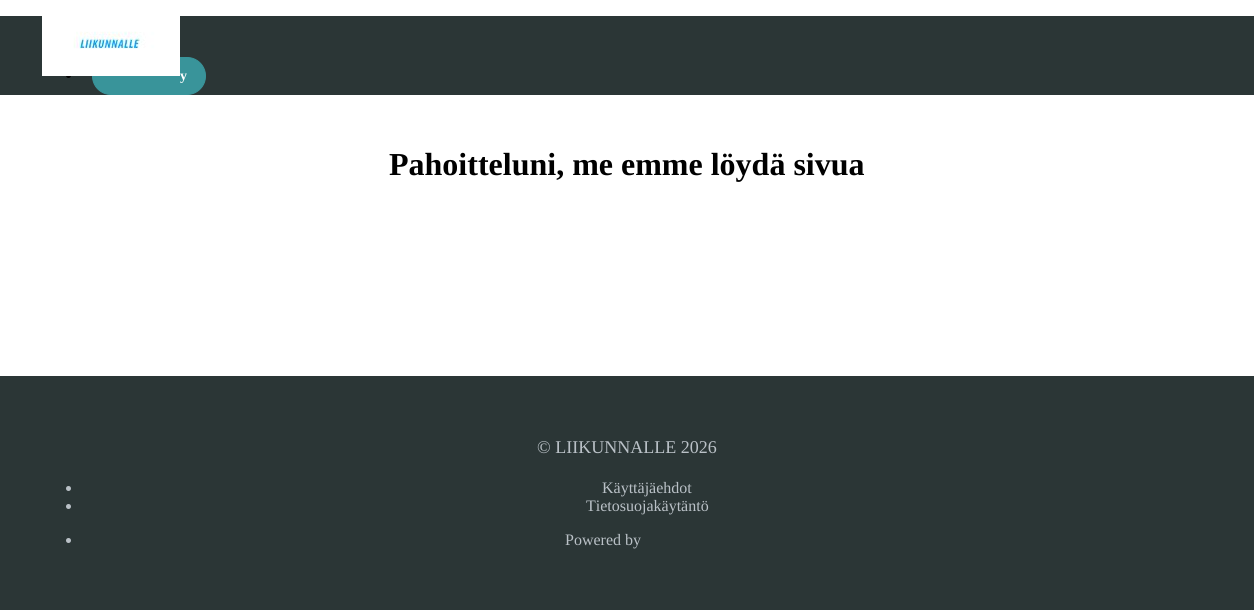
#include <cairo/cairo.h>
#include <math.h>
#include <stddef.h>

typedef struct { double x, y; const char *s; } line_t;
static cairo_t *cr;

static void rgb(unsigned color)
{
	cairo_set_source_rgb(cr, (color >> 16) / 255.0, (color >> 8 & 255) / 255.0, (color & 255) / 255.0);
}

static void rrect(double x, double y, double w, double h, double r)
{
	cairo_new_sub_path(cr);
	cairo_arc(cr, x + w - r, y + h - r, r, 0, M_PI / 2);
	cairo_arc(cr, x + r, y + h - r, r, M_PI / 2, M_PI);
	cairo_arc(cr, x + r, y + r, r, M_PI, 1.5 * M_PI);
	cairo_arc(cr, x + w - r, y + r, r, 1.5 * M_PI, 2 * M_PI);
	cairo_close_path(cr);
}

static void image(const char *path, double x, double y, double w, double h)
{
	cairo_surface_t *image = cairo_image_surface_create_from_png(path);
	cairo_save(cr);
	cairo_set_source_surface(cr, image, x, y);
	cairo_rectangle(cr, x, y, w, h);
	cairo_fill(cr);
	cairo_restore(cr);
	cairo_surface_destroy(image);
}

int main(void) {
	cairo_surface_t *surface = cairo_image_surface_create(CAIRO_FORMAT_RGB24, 1254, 610);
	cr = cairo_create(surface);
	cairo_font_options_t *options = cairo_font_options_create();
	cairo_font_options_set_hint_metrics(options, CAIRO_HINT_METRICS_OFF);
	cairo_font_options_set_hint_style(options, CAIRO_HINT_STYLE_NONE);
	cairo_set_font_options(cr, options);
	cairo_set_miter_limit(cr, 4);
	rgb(0xffffff);
	cairo_paint(cr);
	rgb(0x2b3636);
	cairo_rectangle(cr, 0, 16, 1254, 79);
	cairo_fill(cr);
	rgb(0x000000);
	cairo_arc(cr, 68.5, 75.5, 2.5, 0, 2 * M_PI);
	cairo_fill(cr);
	rgb(0x39949a);
	rrect(92.5, 57.5, 113, 37, 18.5);
	cairo_fill_preserve(cr);
	cairo_set_line_width(cr, 1);
	cairo_stroke(cr);
	image("img/1.png", 42, 16, 138, 60);
	rgb(0x2b3636);
	cairo_rectangle(cr, 0, 376, 1254, 234);
	cairo_fill(cr);
	rgb(0xbac1c7);
	cairo_arc(cr, 68.5, 488.5, 2.5, 0, 2 * M_PI);
	cairo_fill(cr);
	cairo_arc(cr, 68.5, 506.5, 2.5, 0, 2 * M_PI);
	cairo_fill(cr);
	cairo_arc(cr, 68.5, 540.5, 2.5, 0, 2 * M_PI);
	cairo_fill(cr);
	cairo_select_font_face(cr, "Liberation Serif", CAIRO_FONT_SLANT_NORMAL, CAIRO_FONT_WEIGHT_BOLD);
	cairo_set_font_size(cr, 14);
	rgb(0xffffff);
	cairo_move_to(cr, 180, 80);
	cairo_show_text(cr, "y");
	cairo_set_font_size(cr, 32);
	rgb(0x000000);
	cairo_move_to(cr, 389, 175);
	cairo_show_text(cr, "Pahoitteluni, me emme löydä sivua");
	cairo_select_font_face(cr, "Liberation Serif", CAIRO_FONT_SLANT_NORMAL, CAIRO_FONT_WEIGHT_NORMAL);
	cairo_set_font_size(cr, 18);
	rgb(0xbac1c7);
	cairo_move_to(cr, 537, 453);
	cairo_show_text(cr, "© LIIKUNNALLE 2026");
	cairo_set_font_size(cr, 16);
	{
		static const line_t items[] = {
			{602, 493, "Käyttäjäehdot"},
			{586, 511, "Tietosuojakäytäntö"},
			{565, 545, "Powered by"},
		};
		for (size_t i = 0; i < sizeof items / sizeof *items; i++) {
			cairo_move_to(cr, items[i].x, items[i].y);
			cairo_show_text(cr, items[i].s);
		}
	}
	cairo_surface_write_to_png(surface, "page.png");
	cairo_font_options_destroy(options);
	cairo_destroy(cr);
	cairo_surface_destroy(surface);
	return 0;
}
